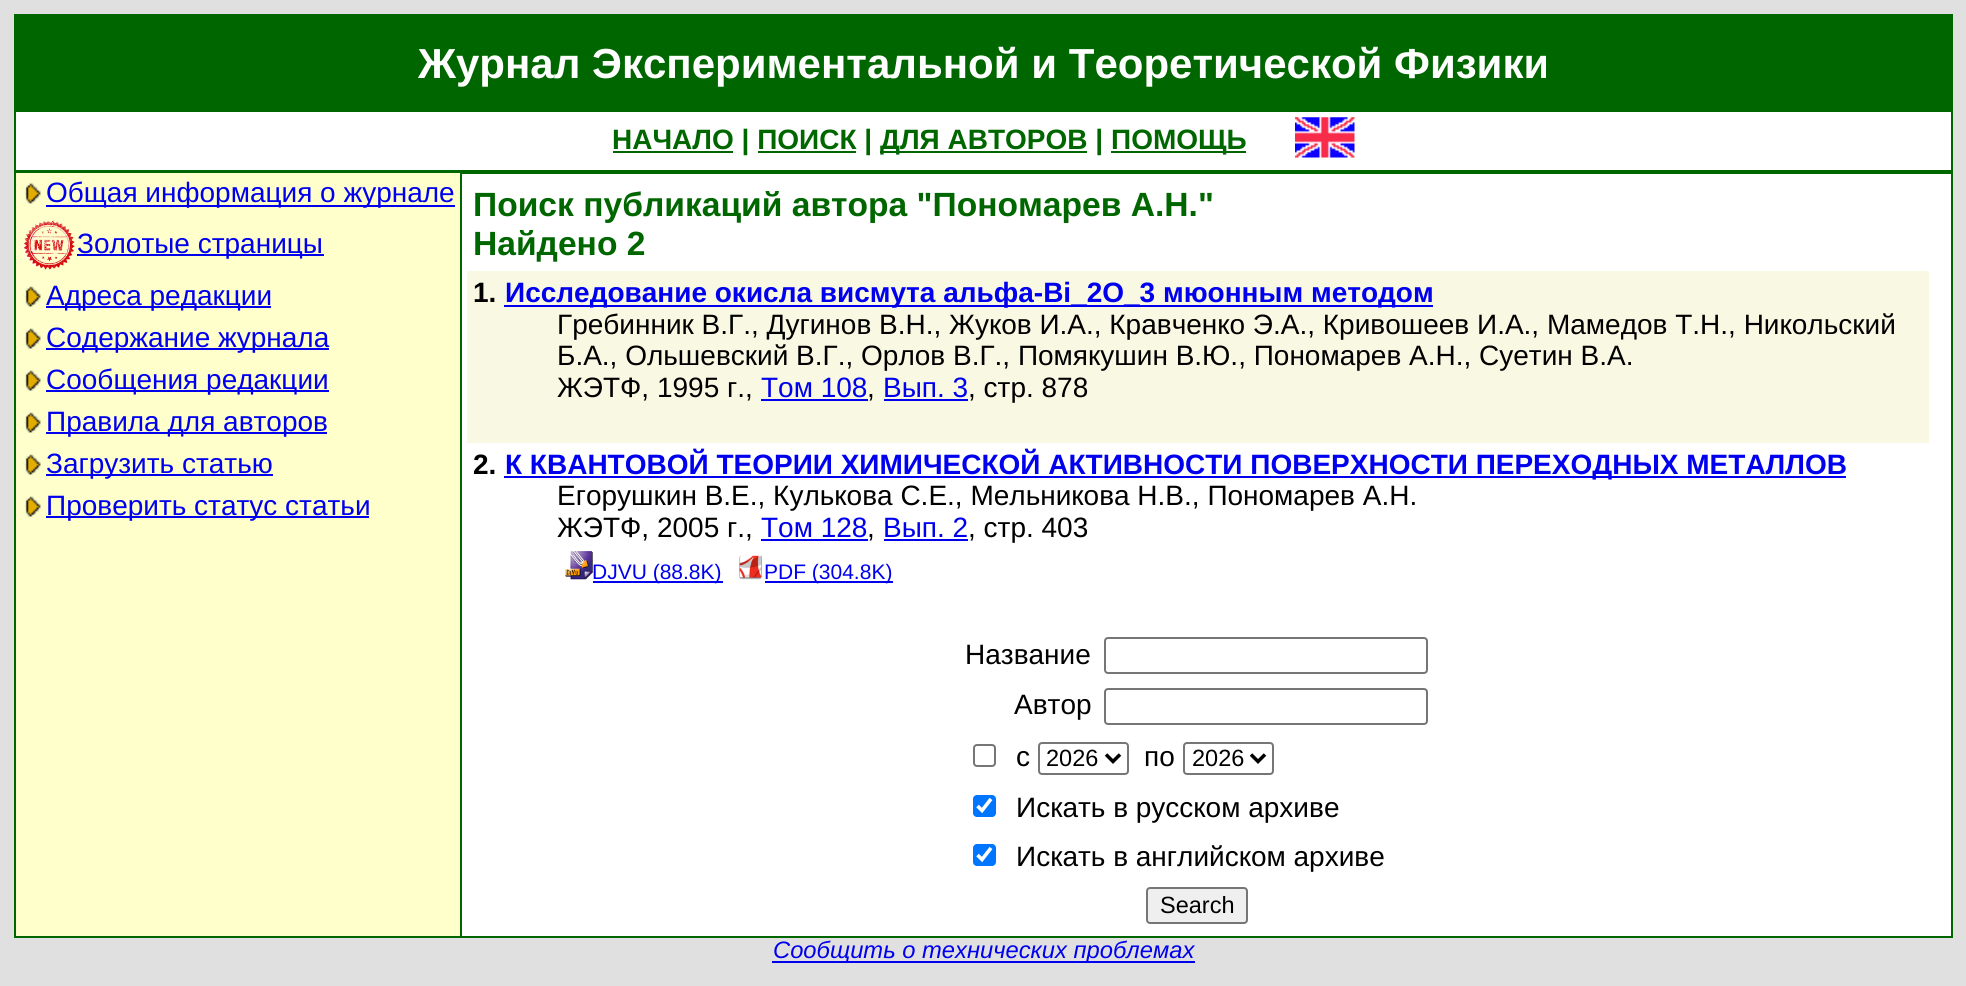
#include <cairo/cairo.h>
#include <math.h>
#include <stddef.h>

typedef struct { double x, y; const char *s; } line_t;
typedef struct { double x, y, w, h; unsigned color; } box_t;
static cairo_t *cr;

static void rgb(unsigned color)
{
	cairo_set_source_rgb(cr, (color >> 16) / 255.0, (color >> 8 & 255) / 255.0, (color & 255) / 255.0);
}

static void rrect(double x, double y, double w, double h, double r)
{
	cairo_new_sub_path(cr);
	cairo_arc(cr, x + w - r, y + h - r, r, 0, M_PI / 2);
	cairo_arc(cr, x + r, y + h - r, r, M_PI / 2, M_PI);
	cairo_arc(cr, x + r, y + r, r, M_PI, 1.5 * M_PI);
	cairo_arc(cr, x + w - r, y + r, r, 1.5 * M_PI, 2 * M_PI);
	cairo_close_path(cr);
}

static void image(const char *path, double x, double y, double w, double h)
{
	cairo_surface_t *image = cairo_image_surface_create_from_png(path);
	cairo_save(cr);
	cairo_set_source_surface(cr, image, x, y);
	cairo_rectangle(cr, x, y, w, h);
	cairo_fill(cr);
	cairo_restore(cr);
	cairo_surface_destroy(image);
}

int main(void) {
	cairo_surface_t *surface = cairo_image_surface_create(CAIRO_FORMAT_RGB24, 1966, 986);
	cr = cairo_create(surface);
	cairo_font_options_t *options = cairo_font_options_create();
	cairo_font_options_set_hint_metrics(options, CAIRO_HINT_METRICS_OFF);
	cairo_font_options_set_hint_style(options, CAIRO_HINT_STYLE_NONE);
	cairo_set_font_options(cr, options);
	cairo_set_miter_limit(cr, 4);
	rgb(0xe0e0e0);
	cairo_paint(cr);
	{
		static const box_t items[] = {
			{14, 14, 1939, 924, 0x006600},
			{16, 112, 1935, 824, 0xffffff},
			{613, 151, 120, 2, 0x006600},
			{880, 151, 207, 2, 0x006600},
			{1111, 151, 135, 2, 0x006600},
			{758, 151, 98, 2, 0x006600},
		};
		for (size_t i = 0; i < sizeof items / sizeof *items; i++) {
			rgb(items[i].color);
			cairo_rectangle(cr, items[i].x, items[i].y, items[i].w, items[i].h);
			cairo_fill(cr);
		}
	}
	image("img/1.png", 1295, 117, 60, 41);
	cairo_rectangle(cr, 16, 170, 1935, 4);
	cairo_fill(cr);
	rgb(0xffffcc);
	cairo_rectangle(cr, 16, 173, 444, 763);
	cairo_fill(cr);
	image("img/2.png", 24, 183, 17, 21);
	rgb(0x0000ee);
	cairo_rectangle(cr, 46, 205, 409, 2);
	cairo_fill(cr);
	image("img/3.png", 21, 220, 54, 50);
	cairo_rectangle(cr, 77, 254, 247, 2);
	cairo_fill(cr);
	image("img/4.png", 24, 286, 17, 21);
	cairo_rectangle(cr, 46, 306, 225, 2);
	cairo_fill(cr);
	image("img/4.png", 24, 328, 17, 21);
	cairo_rectangle(cr, 46, 348, 283, 2);
	cairo_fill(cr);
	image("img/4.png", 24, 370, 17, 21);
	cairo_rectangle(cr, 46, 390, 283, 2);
	cairo_fill(cr);
	image("img/4.png", 24, 412, 17, 21);
	cairo_rectangle(cr, 46, 432, 281, 2);
	cairo_fill(cr);
	image("img/4.png", 24, 454, 17, 21);
	cairo_rectangle(cr, 46, 474, 227, 2);
	cairo_fill(cr);
	image("img/4.png", 24, 496, 17, 21);
	{
		static const box_t items[] = {
			{46, 516, 323, 2, 0x0000ee},
			{460, 173, 2, 763, 0x006600},
			{467, 271, 1462, 172, 0xf8f8e3},
			{504, 305, 929, 2, 0x0000ee},
			{761, 399, 107, 2, 0x0000ee},
			{884, 399, 84, 2, 0x0000ee},
			{504, 476, 1342, 2, 0x0000ee},
			{761, 539, 107, 2, 0x0000ee},
			{884, 539, 84, 2, 0x0000ee},
		};
		for (size_t i = 0; i < sizeof items / sizeof *items; i++) {
			rgb(items[i].color);
			cairo_rectangle(cr, items[i].x, items[i].y, items[i].w, items[i].h);
			cairo_fill(cr);
		}
	}
	image("img/5.png", 565, 551, 28, 29);
	cairo_rectangle(cr, 593, 581, 130, 2);
	cairo_fill(cr);
	image("img/6.png", 739, 555, 23, 25);
	cairo_rectangle(cr, 765, 581, 128, 2);
	cairo_fill(cr);
	rrect(1105, 638, 322, 35, 3);
	rgb(0x767676);
	cairo_stroke(cr);
	rrect(1105, 689, 322, 35, 3);
	cairo_stroke(cr);
	rrect(974, 745, 21, 21, 3);
	cairo_stroke(cr);
	rrect(1039, 743, 89, 31, 3);
	cairo_stroke(cr);
	cairo_new_path(cr);
	cairo_move_to(cr, 1106, 754.5);
	cairo_line_to(cr, 1113, 761.5);
	cairo_line_to(cr, 1120, 754.5);
	rgb(0x000000);
	cairo_set_line_width(cr, 3.5);
	cairo_stroke(cr);
	rrect(1184, 743, 89, 31, 3);
	rgb(0x767676);
	cairo_set_line_width(cr, 2);
	cairo_stroke(cr);
	cairo_new_path(cr);
	cairo_move_to(cr, 1251, 754.5);
	cairo_line_to(cr, 1258, 761.5);
	cairo_line_to(cr, 1265, 754.5);
	rgb(0x000000);
	cairo_set_line_width(cr, 3.5);
	cairo_stroke(cr);
	rgb(0x0075ff);
	rrect(973, 795, 23, 22, 4);
	cairo_fill(cr);
	cairo_new_path(cr);
	cairo_move_to(cr, 977.5, 806);
	cairo_line_to(cr, 982, 810.5);
	cairo_line_to(cr, 991, 799);
	rgb(0xffffff);
	cairo_set_line_width(cr, 3.6);
	cairo_stroke(cr);
	rgb(0x0075ff);
	rrect(973, 844, 23, 22, 4);
	cairo_fill(cr);
	cairo_new_path(cr);
	cairo_move_to(cr, 977.5, 855);
	cairo_line_to(cr, 982, 859.5);
	cairo_line_to(cr, 991, 848);
	rgb(0xffffff);
	cairo_stroke(cr);
	rgb(0xefefef);
	rrect(1147, 888, 100, 35, 3);
	cairo_fill_preserve(cr);
	rgb(0x767676);
	cairo_set_line_width(cr, 2);
	cairo_stroke(cr);
	rgb(0x0000ee);
	cairo_rectangle(cr, 772, 961, 423, 2);
	cairo_fill(cr);
	cairo_select_font_face(cr, "Liberation Sans", CAIRO_FONT_SLANT_NORMAL, CAIRO_FONT_WEIGHT_BOLD);
	cairo_set_font_size(cr, 42);
	rgb(0xffffff);
	cairo_move_to(cr, 418, 78);
	cairo_show_text(cr, "Журнал Экспериментальной и Теоретической Физики");
	cairo_set_font_size(cr, 28);
	rgb(0x006600);
	{
		static const line_t items[] = {
			{612, 149, "НАЧАЛО | ПОИСК |"},
			{880, 149, "ДЛЯ АВТОРОВ |"},
			{1111, 149, "ПОМОЩЬ"},
		};
		for (size_t i = 0; i < sizeof items / sizeof *items; i++) {
			cairo_move_to(cr, items[i].x, items[i].y);
			cairo_show_text(cr, items[i].s);
		}
	}
	cairo_select_font_face(cr, "Liberation Sans", CAIRO_FONT_SLANT_NORMAL, CAIRO_FONT_WEIGHT_NORMAL);
	rgb(0x0000ee);
	{
		static const line_t items[] = {
			{46, 202, "Общая информация о журнале"},
			{77, 253, "Золотые страницы"},
			{46, 305, "Адреса редакции"},
			{46, 347, "Содержание журнала"},
			{46, 389, "Сообщения редакции"},
			{46, 431, "Правила для авторов"},
			{46, 473, "Загрузить статью"},
			{46, 515, "Проверить статус статьи"},
		};
		for (size_t i = 0; i < sizeof items / sizeof *items; i++) {
			cairo_move_to(cr, items[i].x, items[i].y);
			cairo_show_text(cr, items[i].s);
		}
	}
	cairo_select_font_face(cr, "Liberation Sans", CAIRO_FONT_SLANT_NORMAL, CAIRO_FONT_WEIGHT_BOLD);
	cairo_set_font_size(cr, 33.6);
	rgb(0x006600);
	cairo_move_to(cr, 473, 216);
	cairo_show_text(cr, "Поиск публикаций автора \"Пономарев А.Н.\"");
	cairo_move_to(cr, 473, 255);
	cairo_show_text(cr, "Найдено 2");
	cairo_set_font_size(cr, 28);
	rgb(0x000000);
	cairo_move_to(cr, 473, 302);
	cairo_show_text(cr, "1.");
	rgb(0x0000ee);
	cairo_move_to(cr, 505, 302);
	cairo_show_text(cr, "Исследование окисла висмута альфа-Bi_2O_3 мюонным методом");
	cairo_select_font_face(cr, "Liberation Sans", CAIRO_FONT_SLANT_NORMAL, CAIRO_FONT_WEIGHT_NORMAL);
	rgb(0x000000);
	{
		static const line_t items[] = {
			{557, 334, "Гребинник В.Г., Дугинов В.Н., Жуков И.А., Кравченко Э.А., Кривошеев И.А., Мамедов Т.Н., Никольский"},
			{557, 365, "Б.А., Ольшевский В.Г., Орлов В.Г., Помякушин В.Ю., Пономарев А.Н., Суетин В.А."},
			{557, 397, "ЖЭТФ, 1995 г.,"},
		};
		for (size_t i = 0; i < sizeof items / sizeof *items; i++) {
			cairo_move_to(cr, items[i].x, items[i].y);
			cairo_show_text(cr, items[i].s);
		}
	}
	rgb(0x0000ee);
	cairo_move_to(cr, 761, 397);
	cairo_show_text(cr, "Том 108");
	rgb(0x000000);
	cairo_move_to(cr, 867, 397);
	cairo_show_text(cr, ",");
	rgb(0x0000ee);
	cairo_move_to(cr, 883, 397);
	cairo_show_text(cr, "Вып. 3");
	rgb(0x000000);
	cairo_move_to(cr, 968, 397);
	cairo_show_text(cr, ", стр. 878");
	cairo_select_font_face(cr, "Liberation Sans", CAIRO_FONT_SLANT_NORMAL, CAIRO_FONT_WEIGHT_BOLD);
	cairo_move_to(cr, 473, 474);
	cairo_show_text(cr, "2.");
	rgb(0x0000ee);
	cairo_move_to(cr, 505, 474);
	cairo_show_text(cr, "К КВАНТОВОЙ ТЕОРИИ ХИМИЧЕСКОЙ АКТИВНОСТИ ПОВЕРХНОСТИ ПЕРЕХОДНЫХ МЕТАЛЛОВ");
	cairo_select_font_face(cr, "Liberation Sans", CAIRO_FONT_SLANT_NORMAL, CAIRO_FONT_WEIGHT_NORMAL);
	rgb(0x000000);
	cairo_move_to(cr, 557, 505);
	cairo_show_text(cr, "Егорушкин В.Е., Кулькова С.Е., Мельникова Н.В., Пономарев А.Н.");
	cairo_move_to(cr, 557, 537);
	cairo_show_text(cr, "ЖЭТФ, 2005 г.,");
	rgb(0x0000ee);
	cairo_move_to(cr, 761, 537);
	cairo_show_text(cr, "Том 128");
	rgb(0x000000);
	cairo_move_to(cr, 867, 537);
	cairo_show_text(cr, ",");
	rgb(0x0000ee);
	cairo_move_to(cr, 883, 537);
	cairo_show_text(cr, "Вып. 2");
	rgb(0x000000);
	cairo_move_to(cr, 968, 537);
	cairo_show_text(cr, ", стр. 403");
	cairo_set_font_size(cr, 21);
	rgb(0x0000ee);
	cairo_move_to(cr, 592, 579);
	cairo_show_text(cr, "DJVU (88.8K)");
	cairo_move_to(cr, 764, 579);
	cairo_show_text(cr, "PDF (304.8K)");
	cairo_set_font_size(cr, 28);
	rgb(0x000000);
	{
		static const line_t items[] = {
			{965, 664, "Название"},
			{1014, 714, "Автор"},
			{1016, 766, "с"},
		};
		for (size_t i = 0; i < sizeof items / sizeof *items; i++) {
			cairo_move_to(cr, items[i].x, items[i].y);
			cairo_show_text(cr, items[i].s);
		}
	}
	cairo_set_font_size(cr, 23.5);
	cairo_move_to(cr, 1046, 766);
	cairo_show_text(cr, "2026");
	cairo_set_font_size(cr, 28);
	cairo_move_to(cr, 1144, 766);
	cairo_show_text(cr, "по");
	cairo_set_font_size(cr, 23.5);
	cairo_move_to(cr, 1192, 766);
	cairo_show_text(cr, "2026");
	cairo_set_font_size(cr, 28);
	cairo_move_to(cr, 1016, 817);
	cairo_show_text(cr, "Искать в русском архиве");
	cairo_move_to(cr, 1016, 866);
	cairo_show_text(cr, "Искать в английском архиве");
	cairo_set_font_size(cr, 23.5);
	cairo_move_to(cr, 1160, 913);
	cairo_show_text(cr, "Search");
	cairo_select_font_face(cr, "Liberation Sans", CAIRO_FONT_SLANT_ITALIC, CAIRO_FONT_WEIGHT_NORMAL);
	cairo_set_font_size(cr, 23.75);
	rgb(0x0000ee);
	cairo_move_to(cr, 773, 958);
	cairo_show_text(cr, "Сообщить о технических проблемах");
	cairo_surface_write_to_png(surface, "page.png");
	cairo_font_options_destroy(options);
	cairo_destroy(cr);
	cairo_surface_destroy(surface);
	return 0;
}
